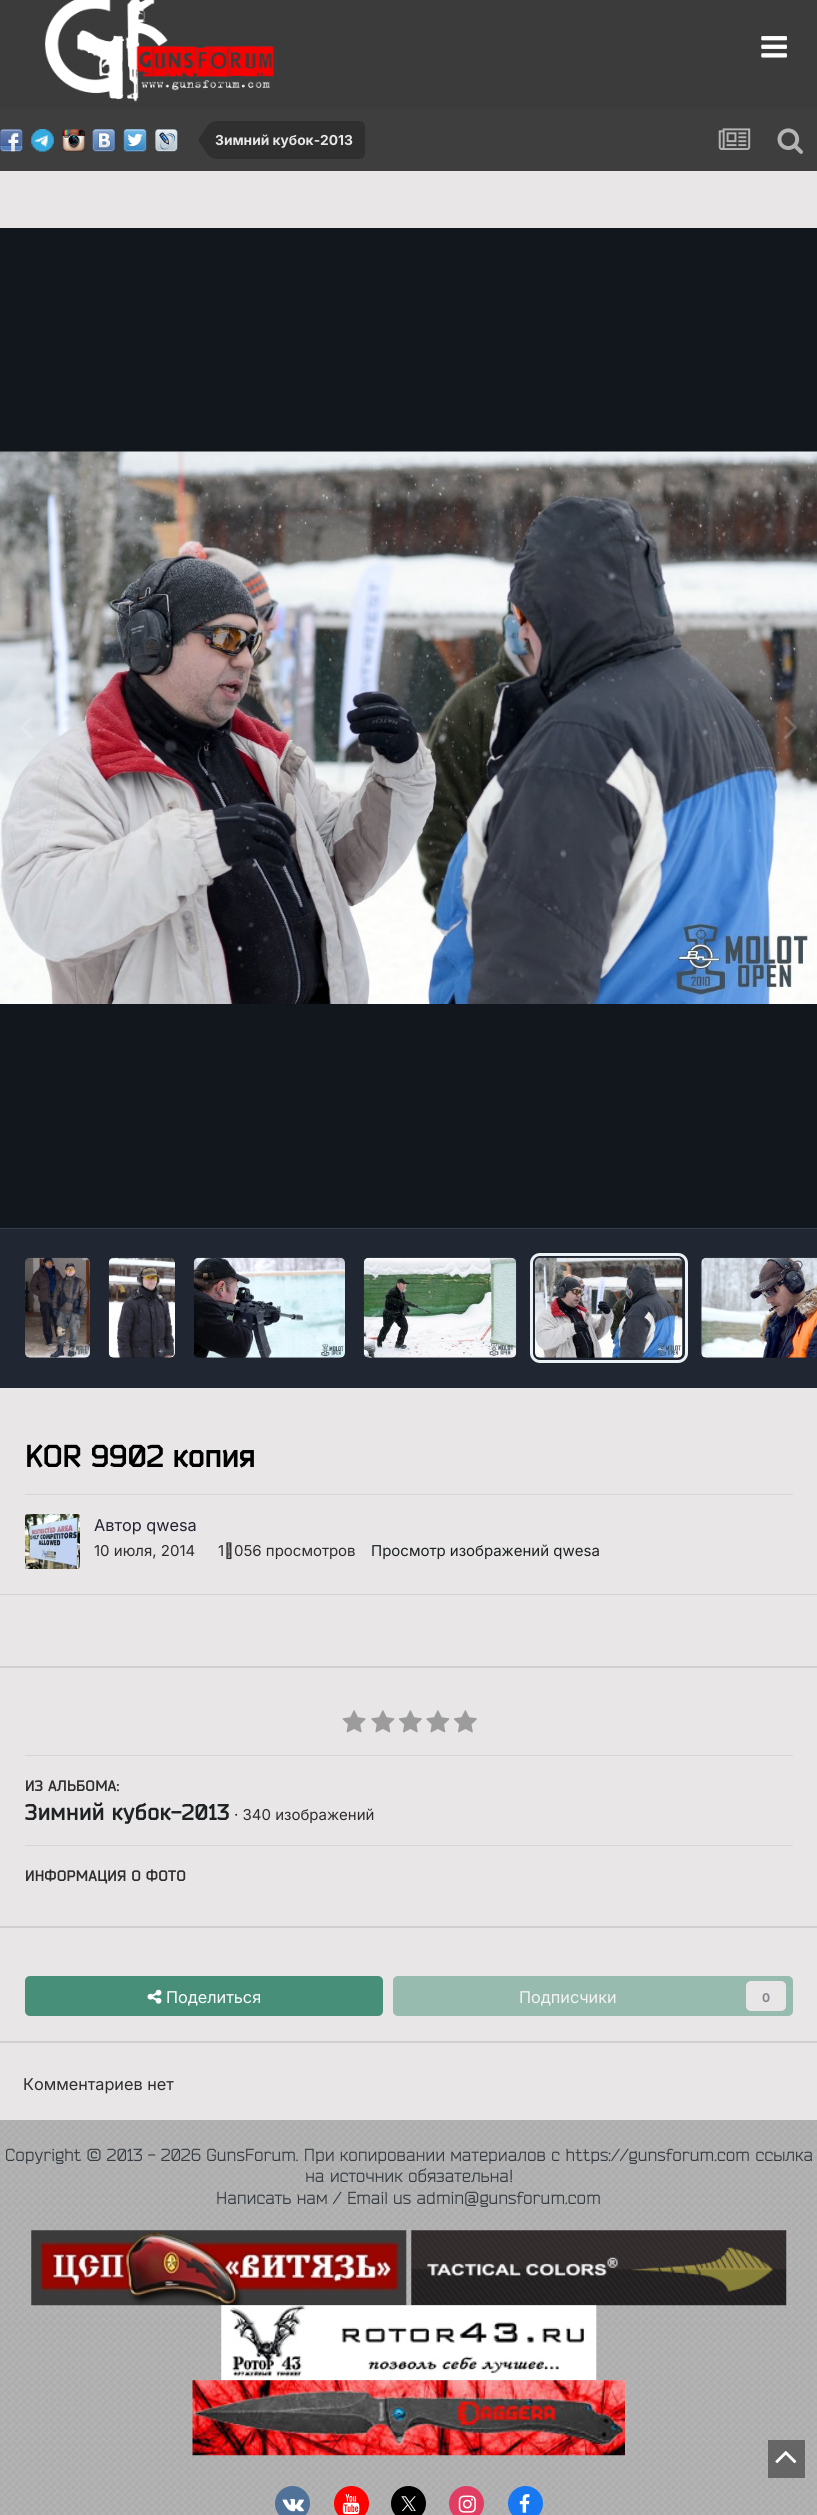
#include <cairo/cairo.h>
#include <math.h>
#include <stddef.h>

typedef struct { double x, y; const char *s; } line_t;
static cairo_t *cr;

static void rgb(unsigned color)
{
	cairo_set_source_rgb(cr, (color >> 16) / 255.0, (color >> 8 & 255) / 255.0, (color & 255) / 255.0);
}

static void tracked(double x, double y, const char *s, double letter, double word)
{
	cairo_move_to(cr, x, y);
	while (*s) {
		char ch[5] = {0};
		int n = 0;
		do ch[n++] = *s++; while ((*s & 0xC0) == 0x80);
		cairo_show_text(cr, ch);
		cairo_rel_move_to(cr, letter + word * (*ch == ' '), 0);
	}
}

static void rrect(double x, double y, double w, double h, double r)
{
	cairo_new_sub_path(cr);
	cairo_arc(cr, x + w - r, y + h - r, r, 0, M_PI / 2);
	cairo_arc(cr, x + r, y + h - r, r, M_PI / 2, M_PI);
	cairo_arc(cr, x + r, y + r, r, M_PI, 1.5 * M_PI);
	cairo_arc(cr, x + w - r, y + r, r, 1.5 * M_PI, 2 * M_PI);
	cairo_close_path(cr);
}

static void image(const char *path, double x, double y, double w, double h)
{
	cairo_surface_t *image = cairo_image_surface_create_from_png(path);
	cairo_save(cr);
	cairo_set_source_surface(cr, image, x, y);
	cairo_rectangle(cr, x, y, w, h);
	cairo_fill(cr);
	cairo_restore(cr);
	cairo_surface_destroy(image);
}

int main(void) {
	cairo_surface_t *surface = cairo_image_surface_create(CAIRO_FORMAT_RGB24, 817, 2515);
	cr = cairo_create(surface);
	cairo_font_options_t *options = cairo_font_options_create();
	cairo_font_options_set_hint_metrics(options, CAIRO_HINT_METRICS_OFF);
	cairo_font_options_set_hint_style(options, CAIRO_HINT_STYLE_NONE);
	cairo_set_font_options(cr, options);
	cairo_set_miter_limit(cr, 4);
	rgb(0xadadad);
	cairo_paint(cr);
	image("img/1.png", 0, 2120, 817, 395);
	rgb(0x3b3b3b);
	cairo_rectangle(cr, 0, 0, 817, 109);
	cairo_fill(cr);
	image("img/2.png", 44, 0, 230, 102);
	image("img/3.png", 761, 36, 26, 22);
	rgb(0x3e3e3e);
	cairo_rectangle(cr, 0, 109, 817, 62);
	cairo_fill(cr);
	image("img/4.png", 0, 129, 23, 23);
	image("img/5.png", 31, 129, 23, 23);
	image("img/6.png", 62, 129, 23, 23);
	image("img/7.png", 92, 129, 23, 23);
	image("img/8.png", 123, 129, 24, 23);
	image("img/9.png", 155, 129, 23, 23);
	rgb(0x2f2f2f);
	cairo_new_path(cr);
	cairo_move_to(cr, 215, 121);
	cairo_line_to(cr, 359, 121);
	cairo_curve_to(cr, 362.5, 121, 365, 123.5, 365, 127);
	cairo_line_to(cr, 365, 153);
	cairo_curve_to(cr, 365, 156.5, 362.5, 159, 359, 159);
	cairo_line_to(cr, 215, 159);
	cairo_close_path(cr);
	cairo_fill(cr);
	cairo_new_path(cr);
	cairo_move_to(cr, 198.5, 141);
	cairo_line_to(cr, 198, 140);
	cairo_line_to(cr, 215, 140);
	cairo_line_to(cr, 215, 158.5);
	cairo_curve_to(cr, 212.5, 158.5, 210.5, 157.5, 208.5, 155.5);
	cairo_close_path(cr);
	cairo_move_to(cr, 215, 121.5);
	cairo_line_to(cr, 215, 140);
	cairo_line_to(cr, 198, 140);
	cairo_line_to(cr, 198.5, 139);
	cairo_line_to(cr, 208.5, 124.5);
	cairo_curve_to(cr, 210.5, 122.5, 212.5, 121.5, 215, 121.5);
	cairo_close_path(cr);
	cairo_fill(cr);
	image("img/10.png", 718, 128, 33, 22);
	image("img/11.png", 777, 128, 26, 26);
	rgb(0xe8e6e6);
	cairo_rectangle(cr, 0, 171, 817, 1949);
	cairo_fill(cr);
	rgb(0x12161d);
	cairo_rectangle(cr, 0, 228, 817, 1000);
	cairo_fill(cr);
	image("img/12.png", 0, 451, 817, 553);
	image("img/13.png", 20, 717, 13, 22);
	image("img/14.png", 784, 716, 14, 23);
	rgb(0x202732);
	cairo_rectangle(cr, 0, 1229, 817, 159);
	cairo_fill(cr);
	rgb(0x363d47);
	cairo_rectangle(cr, 0, 1228, 817, 1);
	cairo_fill(cr);
	rgb(0x141414);
	rrect(25, 1258, 65, 100, 5);
	cairo_fill(cr);
	cairo_set_source_rgba(cr, 0.176, 0.216, 0.282, 0.3);
	rrect(25, 1258, 65, 100, 5);
	cairo_fill(cr);
	image("img/15.png", 25, 1257, 65, 101);
	rgb(0x141414);
	rrect(109, 1258, 66, 100, 5);
	cairo_fill(cr);
	cairo_set_source_rgba(cr, 0.176, 0.216, 0.282, 0.3);
	rrect(109, 1258, 66, 100, 5);
	cairo_fill(cr);
	image("img/16.png", 108, 1257, 67, 101);
	rgb(0x141414);
	rrect(194, 1258, 151, 100, 5);
	cairo_fill(cr);
	cairo_set_source_rgba(cr, 0.176, 0.216, 0.282, 0.3);
	rrect(194, 1258, 151, 100, 5);
	cairo_fill(cr);
	image("img/17.png", 193, 1257, 152, 101);
	rgb(0x141414);
	rrect(364, 1258, 152, 100, 5);
	cairo_fill(cr);
	cairo_set_source_rgba(cr, 0.176, 0.216, 0.282, 0.3);
	rrect(364, 1258, 152, 100, 5);
	cairo_fill(cr);
	image("img/18.png", 363, 1257, 154, 101);
	rgb(0x141414);
	rrect(535, 1258, 148, 100, 5);
	cairo_fill(cr);
	cairo_set_source_rgba(cr, 0.176, 0.216, 0.282, 0.3);
	rrect(535, 1258, 148, 100, 5);
	cairo_fill(cr);
	rrect(531.5, 1254.5, 155, 107, 8.5);
	rgb(0xedf2f7);
	cairo_set_line_width(cr, 3);
	cairo_stroke(cr);
	image("img/19.png", 535, 1257, 148, 101);
	rgb(0x141414);
	cairo_new_path(cr);
	cairo_move_to(cr, 706, 1258);
	cairo_line_to(cr, 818, 1258);
	cairo_line_to(cr, 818, 1358);
	cairo_line_to(cr, 706, 1358);
	cairo_curve_to(cr, 703, 1358, 701, 1356, 701, 1353);
	cairo_line_to(cr, 701, 1263);
	cairo_curve_to(cr, 701, 1260, 703, 1258, 706, 1258);
	cairo_close_path(cr);
	cairo_fill(cr);
	cairo_set_source_rgba(cr, 0.176, 0.216, 0.282, 0.3);
	cairo_new_path(cr);
	cairo_move_to(cr, 706, 1258);
	cairo_line_to(cr, 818, 1258);
	cairo_line_to(cr, 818, 1358);
	cairo_line_to(cr, 706, 1358);
	cairo_curve_to(cr, 703, 1358, 701, 1356, 701, 1353);
	cairo_line_to(cr, 701, 1263);
	cairo_curve_to(cr, 701, 1260, 703, 1258, 706, 1258);
	cairo_close_path(cr);
	cairo_fill(cr);
	image("img/20.png", 701, 1257, 116, 101);
	rgb(0xd1cfcf);
	cairo_new_path(cr);
	cairo_move_to(cr, 0, 1666);
	cairo_line_to(cr, 0, 1668);
	cairo_line_to(cr, 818, 1668);
	cairo_line_to(cr, 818, 1414);
	cairo_line_to(cr, 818, 1666);
	cairo_close_path(cr);
	cairo_fill(cr);
	rgb(0xd8d6d8);
	cairo_rectangle(cr, 25, 1494, 768, 1);
	cairo_fill(cr);
	image("img/21.png", 25, 1514, 55, 55);
	rgb(0xd4d2d4);
	cairo_rectangle(cr, 0, 1594, 817, 1);
	cairo_fill(cr);
	rgb(0xd1cfcf);
	cairo_new_path(cr);
	cairo_move_to(cr, 0, 1926);
	cairo_line_to(cr, 0, 1928);
	cairo_line_to(cr, 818, 1928);
	cairo_line_to(cr, 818, 1686);
	cairo_line_to(cr, 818, 1926);
	cairo_close_path(cr);
	cairo_fill(cr);
	image("img/22.png", 342, 1710, 24, 23);
	image("img/23.png", 371, 1710, 24, 23);
	image("img/24.png", 398, 1710, 24, 23);
	image("img/23.png", 426, 1710, 24, 23);
	image("img/24.png", 453, 1710, 24, 23);
	rgb(0xd8d6d8);
	cairo_rectangle(cr, 25, 1755, 768, 1);
	cairo_fill(cr);
	cairo_rectangle(cr, 25, 1845, 768, 1);
	cairo_fill(cr);
	rgb(0xd1cfcf);
	cairo_new_path(cr);
	cairo_move_to(cr, 0, 2041);
	cairo_line_to(cr, 0, 2043);
	cairo_line_to(cr, 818, 2043);
	cairo_line_to(cr, 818, 1953);
	cairo_line_to(cr, 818, 2041);
	cairo_close_path(cr);
	cairo_fill(cr);
	rgb(0x478f79);
	rrect(25, 1976, 358, 40, 5);
	cairo_fill(cr);
	image("img/25.png", 147, 1989, 15, 15);
	rgb(0x98bbb0);
	rrect(393, 1976, 400, 40, 5);
	cairo_fill(cr);
	rgb(0xe8e6e6);
	rrect(746, 1981, 40, 30, 5);
	cairo_fill(cr);
	image("img/26.png", 31, 2230, 376, 76);
	image("img/27.png", 411, 2230, 376, 76);
	image("img/28.png", 221, 2305, 376, 76);
	image("img/29.png", 192, 2380, 433, 76);
	cairo_set_source_rgba(cr, 0.278, 0.278, 0.278, 0.7);
	cairo_rectangle(cr, 768, 2440, 37, 38);
	cairo_fill(cr);
	image("img/30.png", 775, 2451, 22, 13);
	rgb(0x507299);
	cairo_arc(cr, 292.5, 2503.5, 17.5, 0, 2 * M_PI);
	cairo_fill(cr);
	image("img/31.png", 282, 2499, 22, 13);
	rgb(0xff0000);
	cairo_arc(cr, 351.5, 2503.5, 17.5, 0, 2 * M_PI);
	cairo_fill(cr);
	image("img/32.png", 342, 2494, 18, 21);
	rgb(0x000000);
	cairo_arc(cr, 408.5, 2503.5, 17.5, 0, 2 * M_PI);
	cairo_fill(cr);
	image("img/33.png", 401, 2496, 15, 15);
	rgb(0xe13d62);
	cairo_arc(cr, 466.5, 2503.5, 17.5, 0, 2 * M_PI);
	cairo_fill(cr);
	image("img/34.png", 458, 2495, 18, 18);
	rgb(0x1778f2);
	cairo_arc(cr, 525.5, 2503.5, 17.5, 0, 2 * M_PI);
	cairo_fill(cr);
	image("img/35.png", 519, 2494, 11, 19);
	cairo_select_font_face(cr, "Inter", CAIRO_FONT_SLANT_NORMAL, CAIRO_FONT_WEIGHT_BOLD);
	cairo_set_font_size(cr, 13.75);
	rgb(0xe8e6e6);
	cairo_move_to(cr, 215, 145);
	cairo_show_text(cr, "Зимний кубок-2013");
	cairo_select_font_face(cr, "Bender", CAIRO_FONT_SLANT_NORMAL, CAIRO_FONT_WEIGHT_BOLD);
	cairo_set_font_size(cr, 31.25);
	rgb(0x000000);
	tracked(25, 1467, "KOR 9902 копия", -0.6, 0);
	cairo_select_font_face(cr, "Inter", CAIRO_FONT_SLANT_NORMAL, CAIRO_FONT_WEIGHT_NORMAL);
	cairo_set_font_size(cr, 16.25);
	rgb(0x232232);
	cairo_move_to(cr, 94, 1531);
	cairo_show_text(cr, "Автор qwesa");
	cairo_set_font_size(cr, 15);
	rgb(0x2e2e2e);
	cairo_move_to(cr, 94, 1556);
	cairo_show_text(cr, "10 июля, 2014");
	cairo_move_to(cr, 218, 1556);
	cairo_show_text(cr, "1 056 просмотров");
	rgb(0x1e2225);
	cairo_move_to(cr, 371, 1556);
	cairo_show_text(cr, "Просмотр изображений qwesa");
	cairo_select_font_face(cr, "Bender", CAIRO_FONT_SLANT_NORMAL, CAIRO_FONT_WEIGHT_BOLD);
	rgb(0x2e2e2e);
	cairo_move_to(cr, 25, 1791);
	cairo_show_text(cr, "ИЗ АЛЬБОМА:");
	cairo_set_font_size(cr, 22.5);
	rgb(0x1e2225);
	cairo_move_to(cr, 25, 1820);
	cairo_show_text(cr, "Зимний кубок-2013");
	cairo_select_font_face(cr, "Inter", CAIRO_FONT_SLANT_NORMAL, CAIRO_FONT_WEIGHT_NORMAL);
	cairo_set_font_size(cr, 15);
	rgb(0x2e2e2e);
	cairo_move_to(cr, 234, 1820);
	cairo_show_text(cr, "· 340 изображений");
	cairo_select_font_face(cr, "Bender", CAIRO_FONT_SLANT_NORMAL, CAIRO_FONT_WEIGHT_BOLD);
	cairo_move_to(cr, 25, 1881);
	cairo_show_text(cr, "ИНФОРМАЦИЯ О ФОТО");
	cairo_select_font_face(cr, "Inter", CAIRO_FONT_SLANT_NORMAL, CAIRO_FONT_WEIGHT_NORMAL);
	cairo_set_font_size(cr, 16.25);
	rgb(0xffffff);
	cairo_move_to(cr, 166, 2003);
	cairo_show_text(cr, "Поделиться");
	rgb(0xf4f3f3);
	cairo_move_to(cr, 519, 2003);
	cairo_show_text(cr, "Подписчики");
	cairo_select_font_face(cr, "Inter", CAIRO_FONT_SLANT_NORMAL, CAIRO_FONT_WEIGHT_BOLD);
	cairo_set_font_size(cr, 12);
	rgb(0x86848c);
	cairo_move_to(cr, 762, 2002);
	cairo_show_text(cr, "0");
	cairo_select_font_face(cr, "Inter", CAIRO_FONT_SLANT_NORMAL, CAIRO_FONT_WEIGHT_NORMAL);
	cairo_set_font_size(cr, 16.25);
	rgb(0x2e2e2e);
	cairo_move_to(cr, 23, 2090);
	cairo_show_text(cr, "Комментариев нет");
	cairo_select_font_face(cr, "Bender", CAIRO_FONT_SLANT_NORMAL, CAIRO_FONT_WEIGHT_NORMAL);
	cairo_set_font_size(cr, 17.5);
	rgb(0x353c41);
	{
		static const line_t items[] = {
			{5, 2161, "Copyright © 2013 - 2026 GunsForum. При копировании материалов с https://gunsforum.com ссылка"},
			{305, 2182, "на источник обязательна!"},
			{216, 2204, "Написать нам / Email us admin@gunsforum.com"},
		};
		for (size_t i = 0; i < sizeof items / sizeof *items; i++) {
			cairo_move_to(cr, items[i].x, items[i].y);
			cairo_show_text(cr, items[i].s);
		}
	}
	cairo_surface_write_to_png(surface, "page.png");
	cairo_font_options_destroy(options);
	cairo_destroy(cr);
	cairo_surface_destroy(surface);
	return 0;
}
